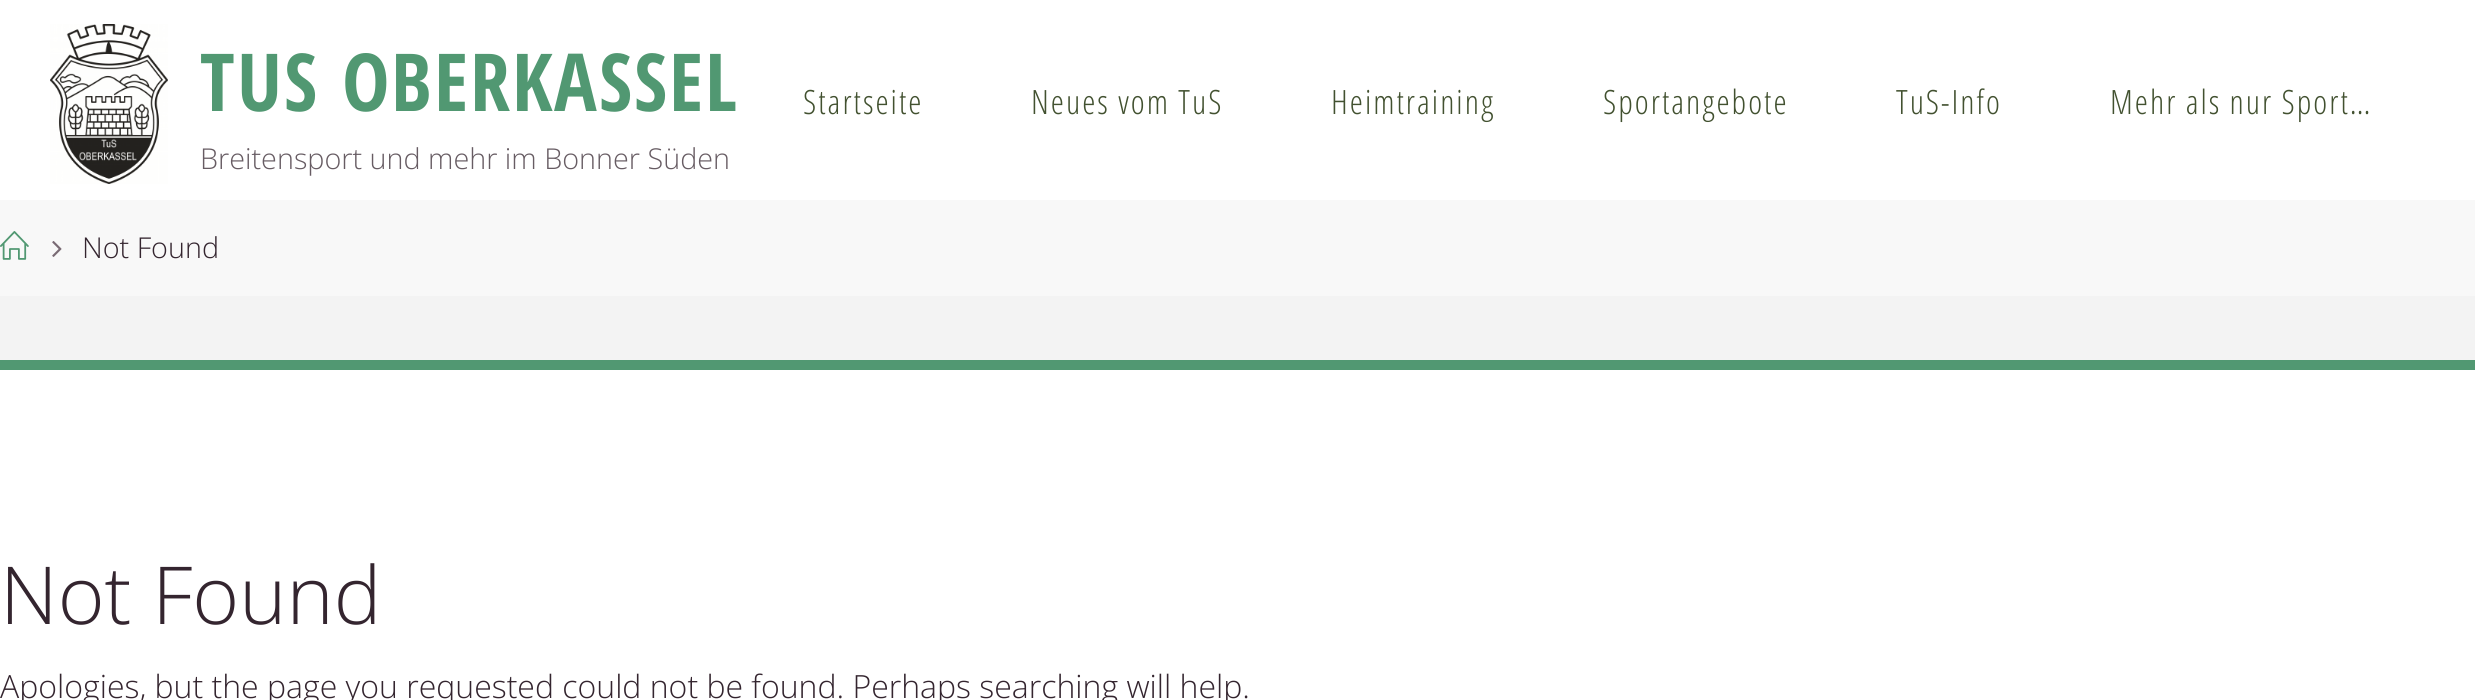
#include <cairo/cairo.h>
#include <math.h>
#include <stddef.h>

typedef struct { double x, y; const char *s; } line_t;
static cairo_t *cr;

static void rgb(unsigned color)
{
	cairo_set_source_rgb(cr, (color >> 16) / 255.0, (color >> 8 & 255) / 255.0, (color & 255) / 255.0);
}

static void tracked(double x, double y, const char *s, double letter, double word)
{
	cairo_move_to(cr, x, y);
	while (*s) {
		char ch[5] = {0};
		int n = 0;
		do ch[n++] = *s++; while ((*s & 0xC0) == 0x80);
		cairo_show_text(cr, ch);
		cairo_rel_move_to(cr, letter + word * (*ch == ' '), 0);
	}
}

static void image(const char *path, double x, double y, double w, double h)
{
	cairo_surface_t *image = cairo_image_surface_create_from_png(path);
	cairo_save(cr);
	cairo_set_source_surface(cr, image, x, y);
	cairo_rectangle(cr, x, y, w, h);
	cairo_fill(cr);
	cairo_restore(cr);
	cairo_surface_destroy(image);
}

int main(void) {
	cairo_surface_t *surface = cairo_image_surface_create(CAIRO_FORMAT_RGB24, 2475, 700);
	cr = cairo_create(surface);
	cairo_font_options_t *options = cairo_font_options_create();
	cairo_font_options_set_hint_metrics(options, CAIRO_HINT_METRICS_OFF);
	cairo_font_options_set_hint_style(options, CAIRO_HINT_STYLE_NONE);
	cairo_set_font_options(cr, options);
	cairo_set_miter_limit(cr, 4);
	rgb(0xf3f3f3);
	cairo_paint(cr);
	rgb(0xffffff);
	cairo_rectangle(cr, 0, 0, 2475, 200);
	cairo_fill(cr);
	image("img/1.png", 50, 24, 118, 160);
	rgb(0xf8f8f8);
	cairo_rectangle(cr, 0, 200, 2475, 96);
	cairo_fill(cr);
	image("img/2.png", 0, 231, 29, 29);
	image("img/3.png", 52, 241, 10, 16);
	rgb(0xffffff);
	cairo_rectangle(cr, 0, 370, 2475, 330);
	cairo_fill(cr);
	rgb(0x519872);
	cairo_rectangle(cr, 0, 360, 2475, 10);
	cairo_fill(cr);
	cairo_select_font_face(cr, "Open Sans Condensed", CAIRO_FONT_SLANT_NORMAL, CAIRO_FONT_WEIGHT_BOLD);
	cairo_set_font_size(cr, 80);
	{
		static const line_t items[] = {
			{200, 111, "T"},
			{237, 111, "U"},
			{284, 111, "S"},
			{342, 111, "O"},
			{391, 111, "B"},
			{434, 111, "E"},
			{470, 111, "R"},
			{512, 111, "K"},
			{554, 111, "A"},
			{599, 111, "S"},
			{634, 111, "S"},
			{669, 111, "E"},
			{705, 111, "L"},
		};
		for (size_t i = 0; i < sizeof items / sizeof *items; i++) {
			cairo_move_to(cr, items[i].x, items[i].y);
			cairo_show_text(cr, items[i].s);
		}
	}
	cairo_select_font_face(cr, "Open Sans Light", CAIRO_FONT_SLANT_NORMAL, CAIRO_FONT_WEIGHT_NORMAL);
	cairo_set_font_size(cr, 28.75);
	rgb(0x675c63);
	cairo_move_to(cr, 200, 169);
	cairo_show_text(cr, "Breitensport und mehr im Bonner Süden");
	cairo_select_font_face(cr, "Open Sans Condensed Light", CAIRO_FONT_SLANT_NORMAL, CAIRO_FONT_WEIGHT_NORMAL);
	cairo_set_font_size(cr, 33.5);
	rgb(0x425130);
	{
		static const line_t items[] = {
			{803, 114, "Startseite"},
			{1031, 114, "Neues vom TuS"},
			{1331, 114, "Heimtraining"},
			{1603, 114, "Sportangebote"},
			{1896, 114, "TuS-Info"},
			{2110, 114, "Mehr als nur Sport…"},
		};
		for (size_t i = 0; i < sizeof items / sizeof *items; i++) {
			tracked(items[i].x, items[i].y, items[i].s, 2, 0);
		}
	}
	cairo_select_font_face(cr, "Open Sans Light", CAIRO_FONT_SLANT_NORMAL, CAIRO_FONT_WEIGHT_NORMAL);
	cairo_set_font_size(cr, 28.75);
	rgb(0x34252f);
	cairo_move_to(cr, 82, 258);
	cairo_show_text(cr, "Not Found");
	cairo_set_font_size(cr, 80);
	cairo_move_to(cr, 0, 624);
	cairo_show_text(cr, "Not Found");
	cairo_set_font_size(cr, 32);
	cairo_move_to(cr, 0, 698);
	cairo_show_text(cr, "Apologies, but the page you requested could not be found. Perhaps searching will help.");
	cairo_surface_write_to_png(surface, "page.png");
	cairo_font_options_destroy(options);
	cairo_destroy(cr);
	cairo_surface_destroy(surface);
	return 0;
}
